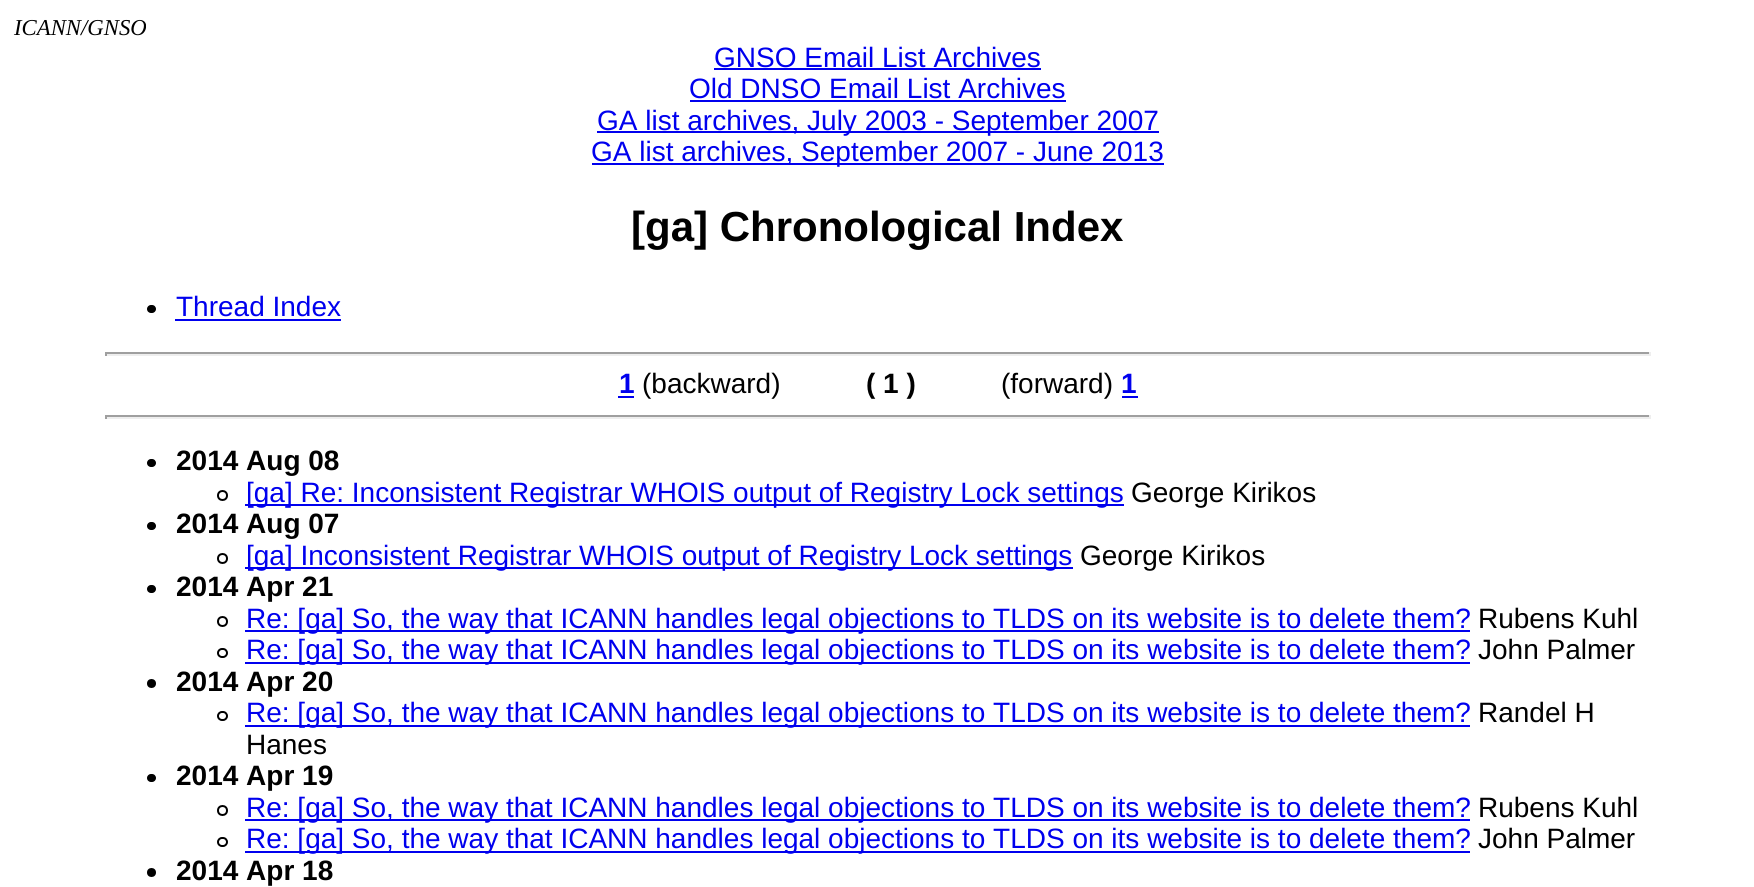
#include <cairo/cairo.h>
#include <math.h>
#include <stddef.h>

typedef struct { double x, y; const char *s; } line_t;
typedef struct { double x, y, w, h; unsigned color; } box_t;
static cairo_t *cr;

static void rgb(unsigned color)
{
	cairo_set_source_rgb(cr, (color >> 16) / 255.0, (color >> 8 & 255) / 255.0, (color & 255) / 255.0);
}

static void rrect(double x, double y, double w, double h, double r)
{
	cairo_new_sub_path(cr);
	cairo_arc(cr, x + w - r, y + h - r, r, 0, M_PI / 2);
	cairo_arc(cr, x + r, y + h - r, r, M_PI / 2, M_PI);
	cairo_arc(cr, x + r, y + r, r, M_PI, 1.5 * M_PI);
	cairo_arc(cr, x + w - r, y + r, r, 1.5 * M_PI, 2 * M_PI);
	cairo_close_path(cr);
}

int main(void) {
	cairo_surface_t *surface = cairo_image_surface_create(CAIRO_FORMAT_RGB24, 1754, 887);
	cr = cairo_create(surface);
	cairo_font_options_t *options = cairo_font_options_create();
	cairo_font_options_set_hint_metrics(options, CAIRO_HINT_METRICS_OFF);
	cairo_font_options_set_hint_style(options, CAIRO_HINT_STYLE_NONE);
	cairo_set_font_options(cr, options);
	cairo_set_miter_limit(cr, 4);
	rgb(0xffffff);
	cairo_paint(cr);
	{
		static const box_t items[] = {
			{714, 68, 327, 2, 0x0000ee},
			{690, 100, 376, 2, 0x0000ee},
			{597, 131, 562, 2, 0x0000ee},
			{592, 163, 572, 2, 0x0000ee},
		};
		for (size_t i = 0; i < sizeof items / sizeof *items; i++) {
			rgb(items[i].color);
			cairo_rectangle(cr, items[i].x, items[i].y, items[i].w, items[i].h);
			cairo_fill(cr);
		}
	}
	rgb(0x000000);
	rrect(147, 305, 9, 8, 4);
	cairo_fill(cr);
	{
		static const box_t items[] = {
			{175, 319, 166, 2, 0x0000ee},
			{105, 352, 1545, 2, 0x9f9f9f},
			{1649, 352, 2, 4, 0xeeeeee},
			{105, 354, 1545, 2, 0xeeeeee},
			{105, 352, 2, 4, 0x9f9f9f},
			{618, 396, 16, 2, 0x0000ee},
			{1122, 396, 16, 2, 0x0000ee},
			{105, 415, 1545, 2, 0x9f9f9f},
			{1649, 415, 2, 4, 0xeeeeee},
			{105, 417, 1545, 2, 0xeeeeee},
			{105, 415, 2, 4, 0x9f9f9f},
		};
		for (size_t i = 0; i < sizeof items / sizeof *items; i++) {
			rgb(items[i].color);
			cairo_rectangle(cr, items[i].x, items[i].y, items[i].w, items[i].h);
			cairo_fill(cr);
		}
	}
	rgb(0x000000);
	rrect(147, 459, 9, 8, 4);
	cairo_fill(cr);
	cairo_arc(cr, 222.5, 495.5, 4.5, 0, 2 * M_PI);
	cairo_stroke(cr);
	rgb(0x0000ee);
	cairo_rectangle(cr, 245, 504, 879, 2);
	cairo_fill(cr);
	rgb(0x000000);
	rrect(147, 522, 9, 8, 4);
	cairo_fill(cr);
	cairo_arc(cr, 222.5, 558.5, 4.5, 0, 2 * M_PI);
	cairo_stroke(cr);
	rgb(0x0000ee);
	cairo_rectangle(cr, 245, 567, 828, 2);
	cairo_fill(cr);
	rgb(0x000000);
	rrect(147, 585, 9, 8, 4);
	cairo_fill(cr);
	cairo_arc(cr, 222.5, 621.5, 4.5, 0, 2 * M_PI);
	cairo_stroke(cr);
	rgb(0x0000ee);
	cairo_rectangle(cr, 245, 630, 1225, 2);
	cairo_fill(cr);
	rrect(218, 649, 9, 8, 4);
	rgb(0x000000);
	cairo_stroke(cr);
	rgb(0x0000ee);
	cairo_rectangle(cr, 245, 662, 1225, 2);
	cairo_fill(cr);
	rgb(0x000000);
	cairo_arc(cr, 151.5, 683.5, 4.5, 0, 2 * M_PI);
	cairo_fill(cr);
	rrect(218, 712, 9, 8, 4);
	cairo_stroke(cr);
	rgb(0x0000ee);
	cairo_rectangle(cr, 245, 725, 1225, 2);
	cairo_fill(cr);
	rgb(0x000000);
	rrect(147, 774, 9, 8, 4);
	cairo_fill(cr);
	cairo_arc(cr, 222.5, 810.5, 4.5, 0, 2 * M_PI);
	cairo_stroke(cr);
	rgb(0x0000ee);
	cairo_rectangle(cr, 245, 819, 1225, 2);
	cairo_fill(cr);
	rrect(218, 838, 9, 8, 4);
	rgb(0x000000);
	cairo_stroke(cr);
	rgb(0x0000ee);
	cairo_rectangle(cr, 245, 851, 1225, 2);
	cairo_fill(cr);
	rgb(0x000000);
	cairo_arc(cr, 151.5, 872.5, 4.5, 0, 2 * M_PI);
	cairo_fill(cr);
	cairo_select_font_face(cr, "Liberation Serif", CAIRO_FONT_SLANT_ITALIC, CAIRO_FONT_WEIGHT_NORMAL);
	cairo_set_font_size(cr, 22.75);
	cairo_move_to(cr, 14, 35);
	cairo_show_text(cr, "ICANN/GNSO");
	cairo_select_font_face(cr, "Liberation Sans", CAIRO_FONT_SLANT_NORMAL, CAIRO_FONT_WEIGHT_NORMAL);
	cairo_set_font_size(cr, 28);
	rgb(0x0000ee);
	{
		static const line_t items[] = {
			{714, 67, "GNSO Email List Archives"},
			{689, 98, "Old DNSO Email List Archives"},
			{597, 130, "GA list archives, July 2003 - September 2007"},
			{591, 161, "GA list archives, September 2007 - June 2013"},
		};
		for (size_t i = 0; i < sizeof items / sizeof *items; i++) {
			cairo_move_to(cr, items[i].x, items[i].y);
			cairo_show_text(cr, items[i].s);
		}
	}
	cairo_select_font_face(cr, "Liberation Sans", CAIRO_FONT_SLANT_NORMAL, CAIRO_FONT_WEIGHT_BOLD);
	cairo_set_font_size(cr, 42);
	rgb(0x000000);
	cairo_move_to(cr, 631, 241);
	cairo_show_text(cr, "[ga] Chronological Index");
	cairo_select_font_face(cr, "Liberation Sans", CAIRO_FONT_SLANT_NORMAL, CAIRO_FONT_WEIGHT_NORMAL);
	cairo_set_font_size(cr, 28);
	rgb(0x0000ee);
	cairo_move_to(cr, 176, 316);
	cairo_show_text(cr, "Thread Index");
	cairo_select_font_face(cr, "Liberation Sans", CAIRO_FONT_SLANT_NORMAL, CAIRO_FONT_WEIGHT_BOLD);
	cairo_move_to(cr, 619, 393);
	cairo_show_text(cr, "1");
	cairo_select_font_face(cr, "Liberation Sans", CAIRO_FONT_SLANT_NORMAL, CAIRO_FONT_WEIGHT_NORMAL);
	rgb(0x000000);
	cairo_move_to(cr, 642, 393);
	cairo_show_text(cr, "(backward)");
	cairo_select_font_face(cr, "Liberation Sans", CAIRO_FONT_SLANT_NORMAL, CAIRO_FONT_WEIGHT_BOLD);
	cairo_move_to(cr, 866, 393);
	cairo_show_text(cr, "( 1 )");
	cairo_select_font_face(cr, "Liberation Sans", CAIRO_FONT_SLANT_NORMAL, CAIRO_FONT_WEIGHT_NORMAL);
	cairo_move_to(cr, 1001, 393);
	cairo_show_text(cr, "(forward)");
	cairo_select_font_face(cr, "Liberation Sans", CAIRO_FONT_SLANT_NORMAL, CAIRO_FONT_WEIGHT_BOLD);
	rgb(0x0000ee);
	cairo_move_to(cr, 1121, 393);
	cairo_show_text(cr, "1");
	rgb(0x000000);
	cairo_move_to(cr, 176, 470);
	cairo_show_text(cr, "2014 Aug 08");
	cairo_select_font_face(cr, "Liberation Sans", CAIRO_FONT_SLANT_NORMAL, CAIRO_FONT_WEIGHT_NORMAL);
	rgb(0x0000ee);
	cairo_move_to(cr, 246, 502);
	cairo_show_text(cr, "[ga] Re: Inconsistent Registrar WHOIS output of Registry Lock settings");
	rgb(0x000000);
	cairo_move_to(cr, 1131, 502);
	cairo_show_text(cr, "George Kirikos");
	cairo_select_font_face(cr, "Liberation Sans", CAIRO_FONT_SLANT_NORMAL, CAIRO_FONT_WEIGHT_BOLD);
	cairo_move_to(cr, 176, 533);
	cairo_show_text(cr, "2014 Aug 07");
	cairo_select_font_face(cr, "Liberation Sans", CAIRO_FONT_SLANT_NORMAL, CAIRO_FONT_WEIGHT_NORMAL);
	rgb(0x0000ee);
	cairo_move_to(cr, 246, 565);
	cairo_show_text(cr, "[ga] Inconsistent Registrar WHOIS output of Registry Lock settings");
	rgb(0x000000);
	cairo_move_to(cr, 1080, 565);
	cairo_show_text(cr, "George Kirikos");
	cairo_select_font_face(cr, "Liberation Sans", CAIRO_FONT_SLANT_NORMAL, CAIRO_FONT_WEIGHT_BOLD);
	cairo_move_to(cr, 176, 596);
	cairo_show_text(cr, "2014 Apr 21");
	cairo_select_font_face(cr, "Liberation Sans", CAIRO_FONT_SLANT_NORMAL, CAIRO_FONT_WEIGHT_NORMAL);
	rgb(0x0000ee);
	cairo_move_to(cr, 246, 628);
	cairo_show_text(cr, "Re: [ga] So, the way that ICANN handles legal objections to TLDS on its website is to delete them?");
	rgb(0x000000);
	cairo_move_to(cr, 1478, 628);
	cairo_show_text(cr, "Rubens Kuhl");
	rgb(0x0000ee);
	cairo_move_to(cr, 246, 659);
	cairo_show_text(cr, "Re: [ga] So, the way that ICANN handles legal objections to TLDS on its website is to delete them?");
	rgb(0x000000);
	cairo_move_to(cr, 1478, 659);
	cairo_show_text(cr, "John Palmer");
	cairo_select_font_face(cr, "Liberation Sans", CAIRO_FONT_SLANT_NORMAL, CAIRO_FONT_WEIGHT_BOLD);
	cairo_move_to(cr, 176, 691);
	cairo_show_text(cr, "2014 Apr 20");
	cairo_select_font_face(cr, "Liberation Sans", CAIRO_FONT_SLANT_NORMAL, CAIRO_FONT_WEIGHT_NORMAL);
	rgb(0x0000ee);
	cairo_move_to(cr, 246, 722);
	cairo_show_text(cr, "Re: [ga] So, the way that ICANN handles legal objections to TLDS on its website is to delete them?");
	rgb(0x000000);
	cairo_move_to(cr, 1478, 722);
	cairo_show_text(cr, "Randel H");
	cairo_move_to(cr, 246, 754);
	cairo_show_text(cr, "Hanes");
	cairo_select_font_face(cr, "Liberation Sans", CAIRO_FONT_SLANT_NORMAL, CAIRO_FONT_WEIGHT_BOLD);
	cairo_move_to(cr, 176, 785);
	cairo_show_text(cr, "2014 Apr 19");
	cairo_select_font_face(cr, "Liberation Sans", CAIRO_FONT_SLANT_NORMAL, CAIRO_FONT_WEIGHT_NORMAL);
	rgb(0x0000ee);
	cairo_move_to(cr, 246, 817);
	cairo_show_text(cr, "Re: [ga] So, the way that ICANN handles legal objections to TLDS on its website is to delete them?");
	rgb(0x000000);
	cairo_move_to(cr, 1478, 817);
	cairo_show_text(cr, "Rubens Kuhl");
	rgb(0x0000ee);
	cairo_move_to(cr, 246, 848);
	cairo_show_text(cr, "Re: [ga] So, the way that ICANN handles legal objections to TLDS on its website is to delete them?");
	rgb(0x000000);
	cairo_move_to(cr, 1478, 848);
	cairo_show_text(cr, "John Palmer");
	cairo_select_font_face(cr, "Liberation Sans", CAIRO_FONT_SLANT_NORMAL, CAIRO_FONT_WEIGHT_BOLD);
	cairo_move_to(cr, 176, 880);
	cairo_show_text(cr, "2014 Apr 18");
	cairo_surface_write_to_png(surface, "page.png");
	cairo_font_options_destroy(options);
	cairo_destroy(cr);
	cairo_surface_destroy(surface);
	return 0;
}
